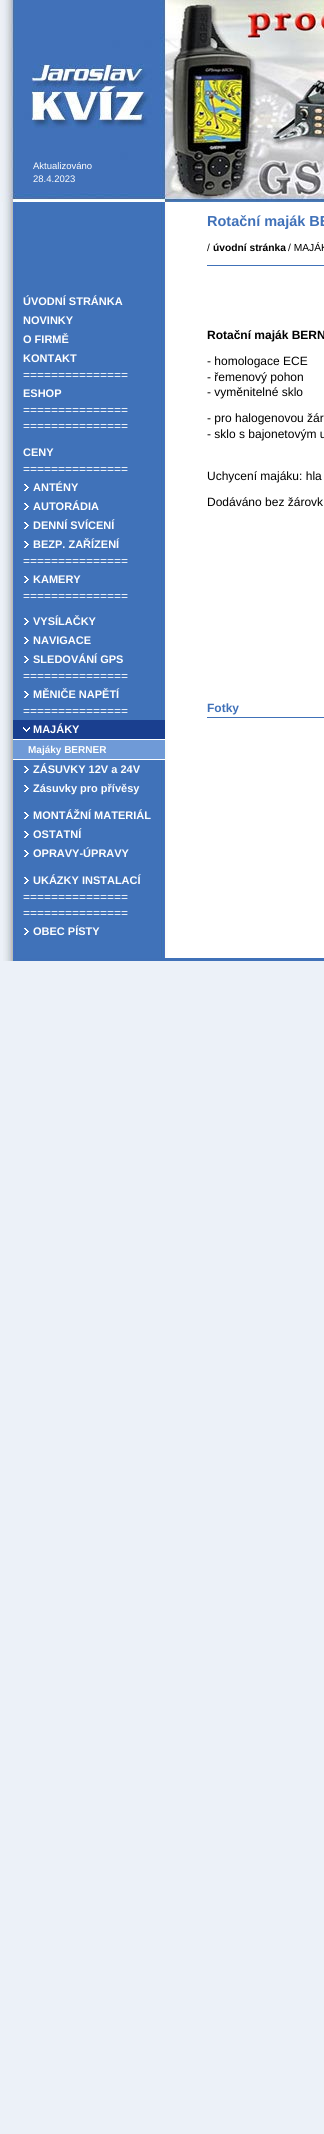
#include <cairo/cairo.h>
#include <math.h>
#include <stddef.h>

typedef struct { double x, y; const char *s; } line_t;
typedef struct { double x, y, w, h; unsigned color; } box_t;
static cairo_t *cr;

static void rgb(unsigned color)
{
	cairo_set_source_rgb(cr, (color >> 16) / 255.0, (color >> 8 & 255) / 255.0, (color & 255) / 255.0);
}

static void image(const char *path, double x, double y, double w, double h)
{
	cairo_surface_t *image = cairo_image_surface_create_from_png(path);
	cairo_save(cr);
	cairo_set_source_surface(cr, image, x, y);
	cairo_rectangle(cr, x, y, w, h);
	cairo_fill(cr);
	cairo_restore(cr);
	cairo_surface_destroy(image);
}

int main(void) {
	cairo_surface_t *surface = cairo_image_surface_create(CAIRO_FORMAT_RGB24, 324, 2134);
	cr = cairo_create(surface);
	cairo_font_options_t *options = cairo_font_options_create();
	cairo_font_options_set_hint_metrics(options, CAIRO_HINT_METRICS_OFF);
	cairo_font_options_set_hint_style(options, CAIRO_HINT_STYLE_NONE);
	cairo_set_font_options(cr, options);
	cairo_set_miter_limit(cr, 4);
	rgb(0xecf1f8);
	cairo_paint(cr);
	image("img/1.png", 3, 202, 321, 759);
	image("img/2.png", 0, 0, 324, 202);
	image("img/3.png", 24, 484, 5, 7);
	image("img/3.png", 24, 503, 5, 7);
	image("img/3.png", 24, 522, 5, 7);
	image("img/3.png", 24, 541, 5, 7);
	image("img/3.png", 24, 576, 5, 7);
	image("img/3.png", 24, 618, 5, 7);
	image("img/3.png", 24, 637, 5, 7);
	image("img/3.png", 24, 656, 5, 7);
	image("img/3.png", 24, 691, 5, 7);
	rgb(0x1a3f8f);
	cairo_rectangle(cr, 13, 720, 152, 19);
	cairo_fill(cr);
	image("img/4.png", 23, 727, 7, 5);
	{
		static const box_t items[] = {
			{13, 739, 152, 1, 0xffffff},
			{13, 740, 152, 19, 0x6f9ad7},
			{13, 759, 152, 1, 0xffffff},
		};
		for (size_t i = 0; i < sizeof items / sizeof *items; i++) {
			rgb(items[i].color);
			cairo_rectangle(cr, items[i].x, items[i].y, items[i].w, items[i].h);
			cairo_fill(cr);
		}
	}
	image("img/3.png", 24, 766, 5, 7);
	image("img/3.png", 24, 785, 5, 7);
	image("img/3.png", 24, 812, 5, 7);
	image("img/3.png", 24, 831, 5, 7);
	image("img/3.png", 24, 850, 5, 7);
	image("img/3.png", 24, 877, 5, 7);
	image("img/3.png", 24, 928, 5, 7);
	{
		static const box_t items[] = {
			{207, 265, 117, 1, 0x4071b8},
			{207, 717, 117, 1, 0x4071b8},
			{13, 958, 311, 3, 0x4071b8},
		};
		for (size_t i = 0; i < sizeof items / sizeof *items; i++) {
			rgb(items[i].color);
			cairo_rectangle(cr, items[i].x, items[i].y, items[i].w, items[i].h);
			cairo_fill(cr);
		}
	}
	cairo_select_font_face(cr, "Liberation Sans", CAIRO_FONT_SLANT_NORMAL, CAIRO_FONT_WEIGHT_NORMAL);
	cairo_set_font_size(cr, 9.5);
	rgb(0xffffff);
	cairo_move_to(cr, 33, 169);
	cairo_show_text(cr, "Aktualizováno");
	cairo_move_to(cr, 33, 182);
	cairo_show_text(cr, "28.4.2023");
	cairo_select_font_face(cr, "Liberation Sans", CAIRO_FONT_SLANT_NORMAL, CAIRO_FONT_WEIGHT_BOLD);
	cairo_set_font_size(cr, 11);
	{
		static const line_t items[] = {
			{23, 305, "ÚVODNÍ STRÁNKA"},
			{23, 324, "NOVINKY"},
			{23, 343, "O FIRMĚ"},
			{23, 362, "KONTAKT"},
		};
		for (size_t i = 0; i < sizeof items / sizeof *items; i++) {
			cairo_move_to(cr, items[i].x, items[i].y);
			cairo_show_text(cr, items[i].s);
		}
	}
	cairo_select_font_face(cr, "Liberation Sans", CAIRO_FONT_SLANT_NORMAL, CAIRO_FONT_WEIGHT_NORMAL);
	cairo_set_font_size(cr, 12);
	cairo_move_to(cr, 23, 379);
	cairo_show_text(cr, "===============");
	cairo_select_font_face(cr, "Liberation Sans", CAIRO_FONT_SLANT_NORMAL, CAIRO_FONT_WEIGHT_BOLD);
	cairo_set_font_size(cr, 11);
	cairo_move_to(cr, 23, 397);
	cairo_show_text(cr, "ESHOP");
	cairo_select_font_face(cr, "Liberation Sans", CAIRO_FONT_SLANT_NORMAL, CAIRO_FONT_WEIGHT_NORMAL);
	cairo_set_font_size(cr, 12);
	cairo_move_to(cr, 23, 414);
	cairo_show_text(cr, "===============");
	cairo_move_to(cr, 23, 430);
	cairo_show_text(cr, "===============");
	cairo_select_font_face(cr, "Liberation Sans", CAIRO_FONT_SLANT_NORMAL, CAIRO_FONT_WEIGHT_BOLD);
	cairo_set_font_size(cr, 11);
	cairo_move_to(cr, 23, 456);
	cairo_show_text(cr, "CENY");
	cairo_select_font_face(cr, "Liberation Sans", CAIRO_FONT_SLANT_NORMAL, CAIRO_FONT_WEIGHT_NORMAL);
	cairo_set_font_size(cr, 12);
	cairo_move_to(cr, 23, 473);
	cairo_show_text(cr, "===============");
	cairo_select_font_face(cr, "Liberation Sans", CAIRO_FONT_SLANT_NORMAL, CAIRO_FONT_WEIGHT_BOLD);
	cairo_set_font_size(cr, 11);
	{
		static const line_t items[] = {
			{33, 491, "ANTÉNY"},
			{33, 510, "AUTORÁDIA"},
			{33, 529, "DENNÍ SVÍCENÍ"},
			{33, 548, "BEZP. ZAŘÍZENÍ"},
		};
		for (size_t i = 0; i < sizeof items / sizeof *items; i++) {
			cairo_move_to(cr, items[i].x, items[i].y);
			cairo_show_text(cr, items[i].s);
		}
	}
	cairo_select_font_face(cr, "Liberation Sans", CAIRO_FONT_SLANT_NORMAL, CAIRO_FONT_WEIGHT_NORMAL);
	cairo_set_font_size(cr, 12);
	cairo_move_to(cr, 23, 565);
	cairo_show_text(cr, "===============");
	cairo_select_font_face(cr, "Liberation Sans", CAIRO_FONT_SLANT_NORMAL, CAIRO_FONT_WEIGHT_BOLD);
	cairo_set_font_size(cr, 11);
	cairo_move_to(cr, 33, 583);
	cairo_show_text(cr, "KAMERY");
	cairo_select_font_face(cr, "Liberation Sans", CAIRO_FONT_SLANT_NORMAL, CAIRO_FONT_WEIGHT_NORMAL);
	cairo_set_font_size(cr, 12);
	cairo_move_to(cr, 23, 600);
	cairo_show_text(cr, "===============");
	cairo_select_font_face(cr, "Liberation Sans", CAIRO_FONT_SLANT_NORMAL, CAIRO_FONT_WEIGHT_BOLD);
	cairo_set_font_size(cr, 11);
	{
		static const line_t items[] = {
			{33, 625, "VYSÍLAČKY"},
			{33, 644, "NAVIGACE"},
			{33, 663, "SLEDOVÁNÍ GPS"},
		};
		for (size_t i = 0; i < sizeof items / sizeof *items; i++) {
			cairo_move_to(cr, items[i].x, items[i].y);
			cairo_show_text(cr, items[i].s);
		}
	}
	cairo_select_font_face(cr, "Liberation Sans", CAIRO_FONT_SLANT_NORMAL, CAIRO_FONT_WEIGHT_NORMAL);
	cairo_set_font_size(cr, 12);
	cairo_move_to(cr, 23, 680);
	cairo_show_text(cr, "===============");
	cairo_select_font_face(cr, "Liberation Sans", CAIRO_FONT_SLANT_NORMAL, CAIRO_FONT_WEIGHT_BOLD);
	cairo_set_font_size(cr, 11);
	cairo_move_to(cr, 33, 698);
	cairo_show_text(cr, "MĚNIČE NAPĚTÍ");
	cairo_select_font_face(cr, "Liberation Sans", CAIRO_FONT_SLANT_NORMAL, CAIRO_FONT_WEIGHT_NORMAL);
	cairo_set_font_size(cr, 12);
	cairo_move_to(cr, 23, 715);
	cairo_show_text(cr, "===============");
	cairo_select_font_face(cr, "Liberation Sans", CAIRO_FONT_SLANT_NORMAL, CAIRO_FONT_WEIGHT_BOLD);
	cairo_set_font_size(cr, 11);
	cairo_move_to(cr, 33, 733);
	cairo_show_text(cr, "MAJÁKY");
	cairo_set_font_size(cr, 10);
	cairo_move_to(cr, 28, 753);
	cairo_show_text(cr, "Majáky BERNER");
	cairo_set_font_size(cr, 11);
	{
		static const line_t items[] = {
			{33, 773, "ZÁSUVKY 12V a 24V"},
			{33, 792, "Zásuvky pro přívěsy"},
			{33, 819, "MONTÁŽNÍ MATERIÁL"},
			{33, 838, "OSTATNÍ"},
			{33, 857, "OPRAVY-ÚPRAVY"},
			{33, 884, "UKÁZKY INSTALACÍ"},
		};
		for (size_t i = 0; i < sizeof items / sizeof *items; i++) {
			cairo_move_to(cr, items[i].x, items[i].y);
			cairo_show_text(cr, items[i].s);
		}
	}
	cairo_select_font_face(cr, "Liberation Sans", CAIRO_FONT_SLANT_NORMAL, CAIRO_FONT_WEIGHT_NORMAL);
	cairo_set_font_size(cr, 12);
	cairo_move_to(cr, 23, 901);
	cairo_show_text(cr, "===============");
	cairo_move_to(cr, 23, 917);
	cairo_show_text(cr, "===============");
	cairo_select_font_face(cr, "Liberation Sans", CAIRO_FONT_SLANT_NORMAL, CAIRO_FONT_WEIGHT_BOLD);
	cairo_set_font_size(cr, 11);
	cairo_move_to(cr, 33, 935);
	cairo_show_text(cr, "OBEC PÍSTY");
	cairo_set_font_size(cr, 14.5);
	rgb(0x4071b8);
	cairo_move_to(cr, 207, 226);
	cairo_show_text(cr, "Rotační maják BE");
	cairo_select_font_face(cr, "Liberation Sans", CAIRO_FONT_SLANT_NORMAL, CAIRO_FONT_WEIGHT_NORMAL);
	cairo_set_font_size(cr, 10.25);
	rgb(0x000000);
	cairo_move_to(cr, 207, 251);
	cairo_show_text(cr, "/");
	cairo_select_font_face(cr, "Liberation Sans", CAIRO_FONT_SLANT_NORMAL, CAIRO_FONT_WEIGHT_BOLD);
	cairo_move_to(cr, 213, 251);
	cairo_show_text(cr, "úvodní stránka");
	cairo_select_font_face(cr, "Liberation Sans", CAIRO_FONT_SLANT_NORMAL, CAIRO_FONT_WEIGHT_NORMAL);
	cairo_move_to(cr, 288, 251);
	cairo_show_text(cr, "/ MAJÁK");
	cairo_select_font_face(cr, "Liberation Sans", CAIRO_FONT_SLANT_NORMAL, CAIRO_FONT_WEIGHT_BOLD);
	cairo_set_font_size(cr, 12);
	cairo_move_to(cr, 207, 339);
	cairo_show_text(cr, "Rotační maják BERN");
	cairo_select_font_face(cr, "Liberation Sans", CAIRO_FONT_SLANT_NORMAL, CAIRO_FONT_WEIGHT_NORMAL);
	{
		static const line_t items[] = {
			{207, 365, "- homologace ECE"},
			{207, 381, "- řemenový pohon"},
			{207, 396, "- vyměnitelné sklo"},
			{207, 422, "- pro halogenovou žár"},
			{207, 438, "- sklo s bajonetovým u"},
			{207, 480, "Uchycení majáku: hla"},
			{207, 506, "Dodáváno bez žárovk"},
		};
		for (size_t i = 0; i < sizeof items / sizeof *items; i++) {
			cairo_move_to(cr, items[i].x, items[i].y);
			cairo_show_text(cr, items[i].s);
		}
	}
	cairo_select_font_face(cr, "Liberation Sans", CAIRO_FONT_SLANT_NORMAL, CAIRO_FONT_WEIGHT_BOLD);
	rgb(0x4071b8);
	cairo_move_to(cr, 207, 712);
	cairo_show_text(cr, "Fotky");
	cairo_surface_write_to_png(surface, "page.png");
	cairo_font_options_destroy(options);
	cairo_destroy(cr);
	cairo_surface_destroy(surface);
	return 0;
}
